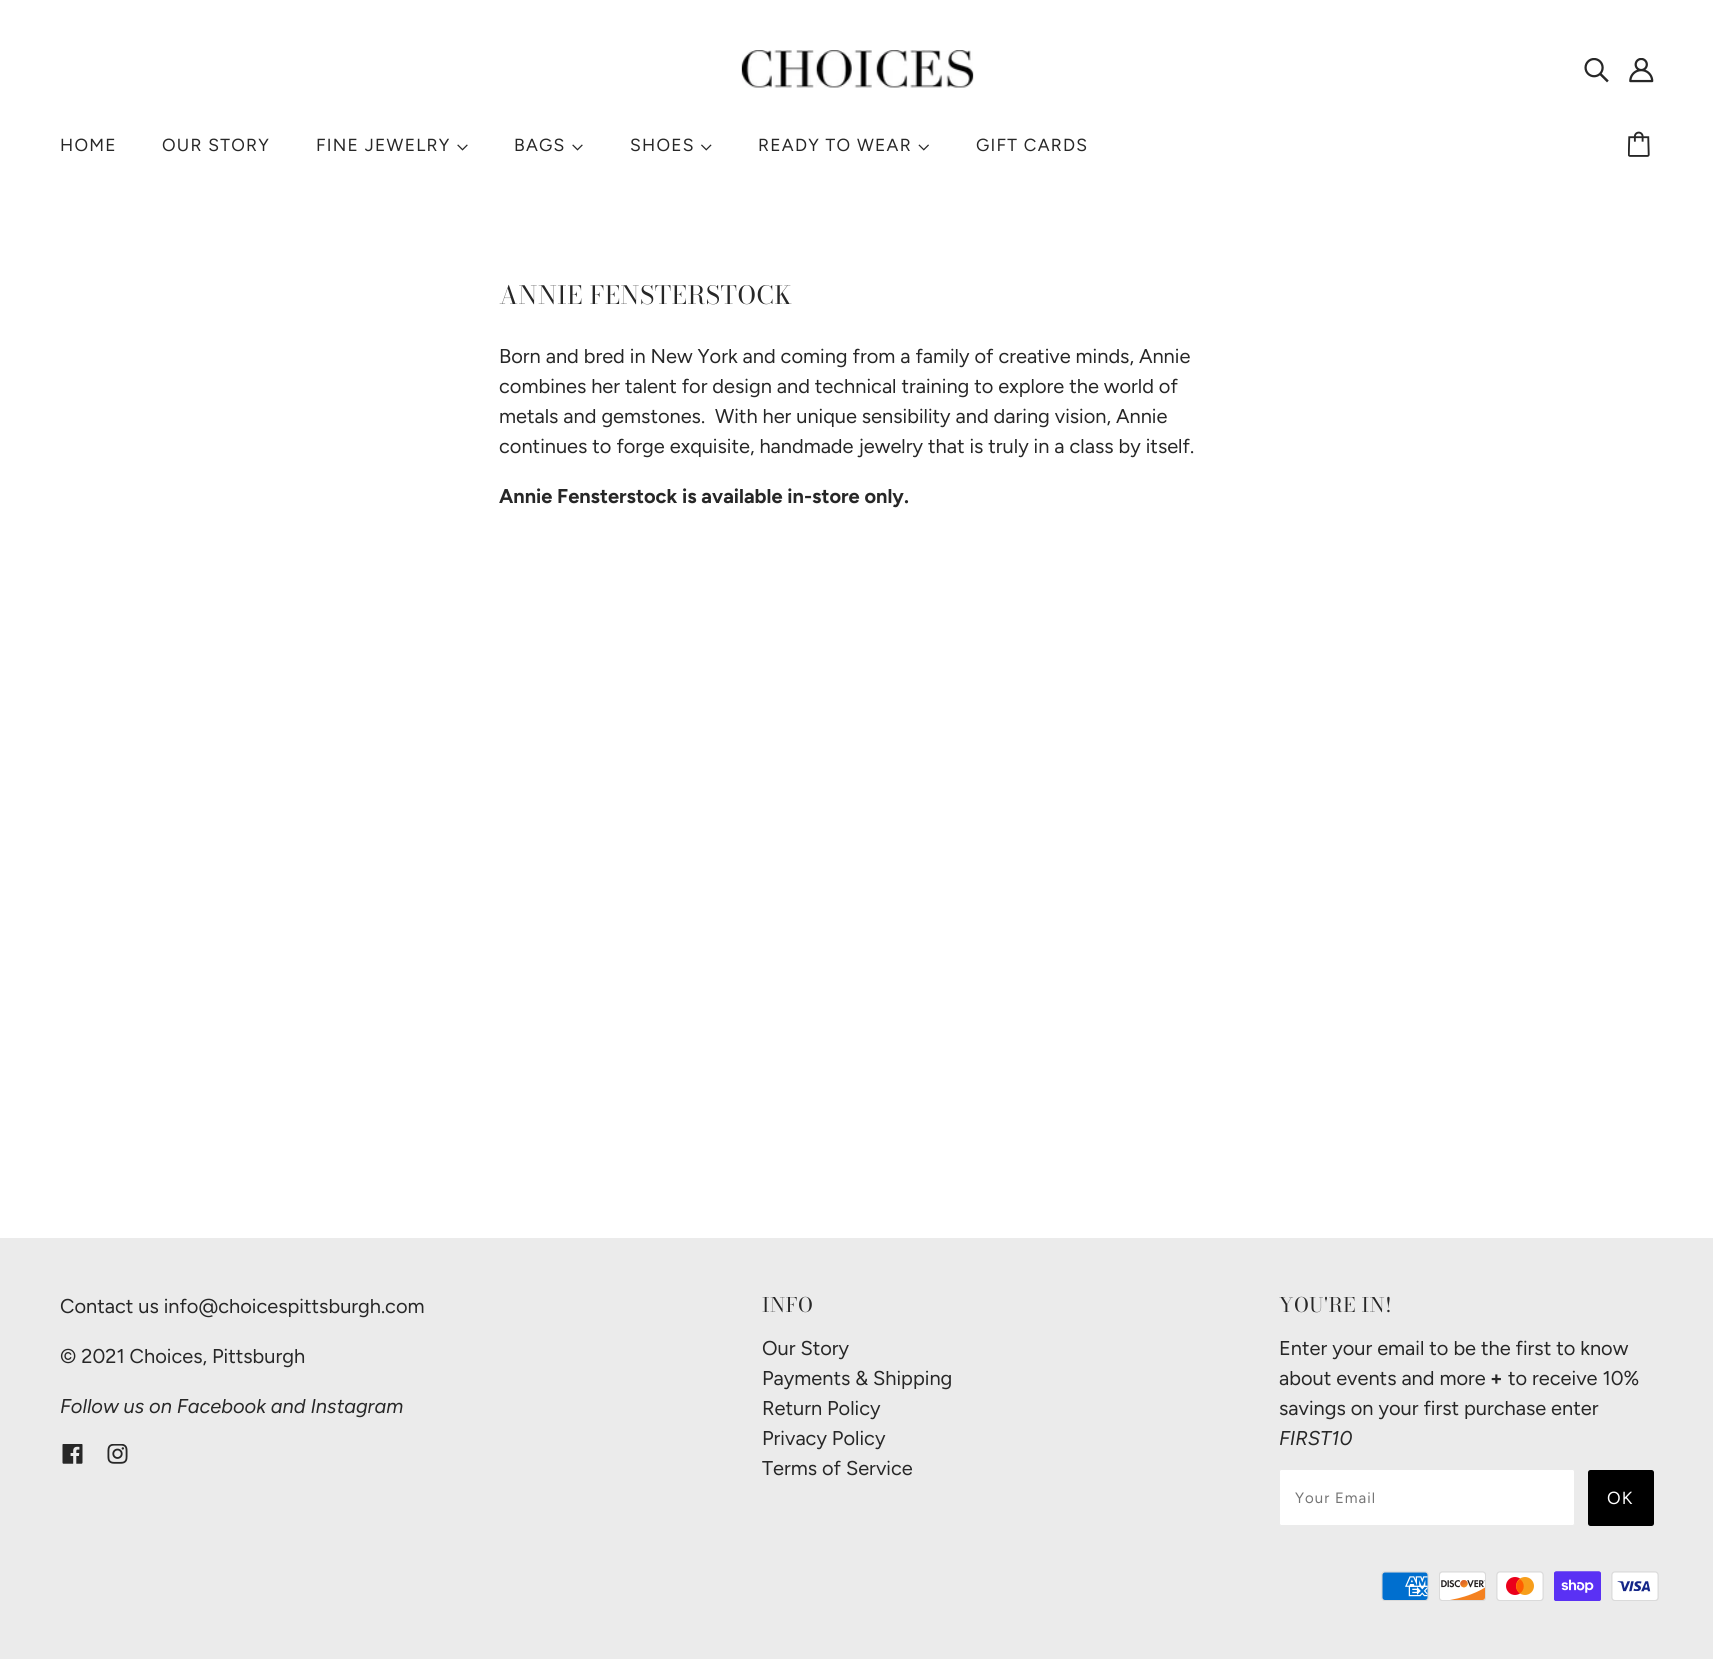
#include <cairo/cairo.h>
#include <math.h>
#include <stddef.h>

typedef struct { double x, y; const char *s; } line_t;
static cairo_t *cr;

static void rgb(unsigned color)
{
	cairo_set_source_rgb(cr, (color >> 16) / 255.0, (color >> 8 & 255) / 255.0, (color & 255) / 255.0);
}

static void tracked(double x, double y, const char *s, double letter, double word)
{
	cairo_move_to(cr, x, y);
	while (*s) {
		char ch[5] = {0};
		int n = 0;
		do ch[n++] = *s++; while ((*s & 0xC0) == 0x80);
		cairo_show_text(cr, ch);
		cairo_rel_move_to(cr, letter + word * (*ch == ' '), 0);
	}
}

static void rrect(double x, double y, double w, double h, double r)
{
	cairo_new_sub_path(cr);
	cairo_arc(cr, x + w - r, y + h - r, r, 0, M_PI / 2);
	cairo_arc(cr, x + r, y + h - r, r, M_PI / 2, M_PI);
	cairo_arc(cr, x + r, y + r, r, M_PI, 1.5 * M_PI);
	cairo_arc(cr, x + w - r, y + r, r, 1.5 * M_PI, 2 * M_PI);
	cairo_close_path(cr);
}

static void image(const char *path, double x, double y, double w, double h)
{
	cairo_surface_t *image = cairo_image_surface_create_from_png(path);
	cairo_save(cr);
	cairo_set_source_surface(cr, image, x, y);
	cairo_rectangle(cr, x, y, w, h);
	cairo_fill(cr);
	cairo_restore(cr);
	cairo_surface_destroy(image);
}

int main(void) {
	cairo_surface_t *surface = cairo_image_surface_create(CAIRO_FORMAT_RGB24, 1713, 1659);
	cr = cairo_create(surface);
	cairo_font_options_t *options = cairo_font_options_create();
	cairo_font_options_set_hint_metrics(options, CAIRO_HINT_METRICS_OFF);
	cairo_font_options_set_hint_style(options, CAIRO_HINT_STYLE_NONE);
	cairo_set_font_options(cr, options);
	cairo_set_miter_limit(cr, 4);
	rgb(0xffffff);
	cairo_paint(cr);
	image("img/1.png", 741, 50, 233, 38);
	image("img/2.png", 1584, 58, 25, 25);
	image("img/3.png", 1629, 58, 25, 25);
	image("img/4.png", 457, 144, 11, 7);
	image("img/4.png", 572, 144, 11, 7);
	image("img/5.png", 701, 144, 11, 7);
	image("img/6.png", 918, 144, 11, 7);
	image("img/7.png", 1628, 131, 22, 26);
	rgb(0xebebeb);
	cairo_rectangle(cr, 0, 1238, 1713, 421);
	cairo_fill(cr);
	image("img/8.png", 62, 1444, 21, 20);
	image("img/9.png", 107, 1444, 21, 20);
	rgb(0xffffff);
	rrect(1279.5, 1469.5, 295, 56, 2);
	cairo_fill_preserve(cr);
	rgb(0xebebeb);
	cairo_set_line_width(cr, 1);
	cairo_stroke(cr);
	rgb(0x000000);
	rrect(1588, 1470, 66, 56, 2.5);
	cairo_fill(cr);
	image("img/10.png", 1381, 1571, 48, 30);
	image("img/11.png", 1439, 1571, 47, 30);
	image("img/12.png", 1496, 1571, 48, 30);
	image("img/13.png", 1554, 1571, 47, 30);
	image("img/14.png", 1611, 1571, 48, 30);
	cairo_select_font_face(cr, "Figtree", CAIRO_FONT_SLANT_NORMAL, CAIRO_FONT_WEIGHT_NORMAL);
	cairo_set_font_size(cr, 17.5);
	rgb(0x272727);
	{
		static const line_t items[] = {
			{60, 151, "HOME"},
			{162, 151, "OUR STORY"},
			{316, 151, "FINE JEWELRY"},
			{514, 151, "BAGS"},
			{630, 151, "SHOES"},
			{758, 151, "READY TO WEAR"},
			{976, 151, "GIFT CARDS"},
		};
		for (size_t i = 0; i < sizeof items / sizeof *items; i++) {
			tracked(items[i].x, items[i].y, items[i].s, 1.25, 0);
		}
	}
	cairo_select_font_face(cr, "Bodoni Moda", CAIRO_FONT_SLANT_NORMAL, CAIRO_FONT_WEIGHT_NORMAL);
	cairo_set_font_size(cr, 25);
	tracked(499, 304, "ANNIE FENSTERSTOCK", 0.6, 0);
	cairo_select_font_face(cr, "Figtree", CAIRO_FONT_SLANT_NORMAL, CAIRO_FONT_WEIGHT_NORMAL);
	cairo_set_font_size(cr, 20);
	{
		static const line_t items[] = {
			{499, 363, "Born and bred in New York and coming from a family of creative minds, Annie"},
			{499, 393, "combines her talent for design and technical training to explore the world of"},
			{499, 423, "metals and gemstones.  With her unique sensibility and daring vision, Annie"},
			{499, 453, "continues to forge exquisite, handmade jewelry that is truly in a class by itself."},
		};
		for (size_t i = 0; i < sizeof items / sizeof *items; i++) {
			cairo_move_to(cr, items[i].x, items[i].y);
			cairo_show_text(cr, items[i].s);
		}
	}
	cairo_select_font_face(cr, "Figtree", CAIRO_FONT_SLANT_NORMAL, CAIRO_FONT_WEIGHT_BOLD);
	cairo_move_to(cr, 499, 503);
	cairo_show_text(cr, "Annie Fensterstock is available in-store only.");
	cairo_select_font_face(cr, "Figtree", CAIRO_FONT_SLANT_NORMAL, CAIRO_FONT_WEIGHT_NORMAL);
	cairo_move_to(cr, 60, 1313);
	cairo_show_text(cr, "Contact us info@choicespittsburgh.com");
	cairo_move_to(cr, 60, 1363);
	cairo_show_text(cr, "© 2021 Choices, Pittsburgh");
	cairo_select_font_face(cr, "Figtree", CAIRO_FONT_SLANT_ITALIC, CAIRO_FONT_WEIGHT_NORMAL);
	cairo_move_to(cr, 60, 1413);
	cairo_show_text(cr, "Follow us on Facebook and Instagram");
	cairo_select_font_face(cr, "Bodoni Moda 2", CAIRO_FONT_SLANT_NORMAL, CAIRO_FONT_WEIGHT_NORMAL);
	tracked(762, 1312, "INFO", 0.5, 0);
	cairo_select_font_face(cr, "Figtree", CAIRO_FONT_SLANT_NORMAL, CAIRO_FONT_WEIGHT_NORMAL);
	{
		static const line_t items[] = {
			{762, 1355, "Our Story"},
			{762, 1385, "Payments & Shipping"},
			{762, 1415, "Return Policy"},
			{762, 1445, "Privacy Policy"},
			{762, 1475, "Terms of Service"},
		};
		for (size_t i = 0; i < sizeof items / sizeof *items; i++) {
			cairo_move_to(cr, items[i].x, items[i].y);
			cairo_show_text(cr, items[i].s);
		}
	}
	cairo_select_font_face(cr, "Bodoni Moda 2", CAIRO_FONT_SLANT_NORMAL, CAIRO_FONT_WEIGHT_NORMAL);
	tracked(1279, 1312, "YOU'RE IN!", 0.5, 0);
	cairo_select_font_face(cr, "Figtree", CAIRO_FONT_SLANT_NORMAL, CAIRO_FONT_WEIGHT_NORMAL);
	cairo_move_to(cr, 1279, 1355);
	cairo_show_text(cr, "Enter your email to be the first to know");
	cairo_move_to(cr, 1279, 1385);
	cairo_show_text(cr, "about events and more");
	cairo_select_font_face(cr, "Figtree", CAIRO_FONT_SLANT_NORMAL, CAIRO_FONT_WEIGHT_BOLD);
	cairo_move_to(cr, 1490, 1385);
	cairo_show_text(cr, "+");
	cairo_select_font_face(cr, "Figtree", CAIRO_FONT_SLANT_NORMAL, CAIRO_FONT_WEIGHT_NORMAL);
	cairo_move_to(cr, 1508, 1385);
	cairo_show_text(cr, "to receive 10%");
	cairo_move_to(cr, 1279, 1415);
	cairo_show_text(cr, "savings on your first purchase enter");
	cairo_select_font_face(cr, "Figtree", CAIRO_FONT_SLANT_ITALIC, CAIRO_FONT_WEIGHT_NORMAL);
	cairo_move_to(cr, 1279, 1445);
	cairo_show_text(cr, "FIRST10");
	cairo_select_font_face(cr, "Figtree", CAIRO_FONT_SLANT_NORMAL, CAIRO_FONT_WEIGHT_NORMAL);
	cairo_set_font_size(cr, 15);
	rgb(0x757575);
	tracked(1295, 1503, "Your Email", 1, 0);
	cairo_set_font_size(cr, 17.5);
	rgb(0xffffff);
	tracked(1607, 1504, "OK", 1.25, 0);
	cairo_surface_write_to_png(surface, "page.png");
	cairo_font_options_destroy(options);
	cairo_destroy(cr);
	cairo_surface_destroy(surface);
	return 0;
}
